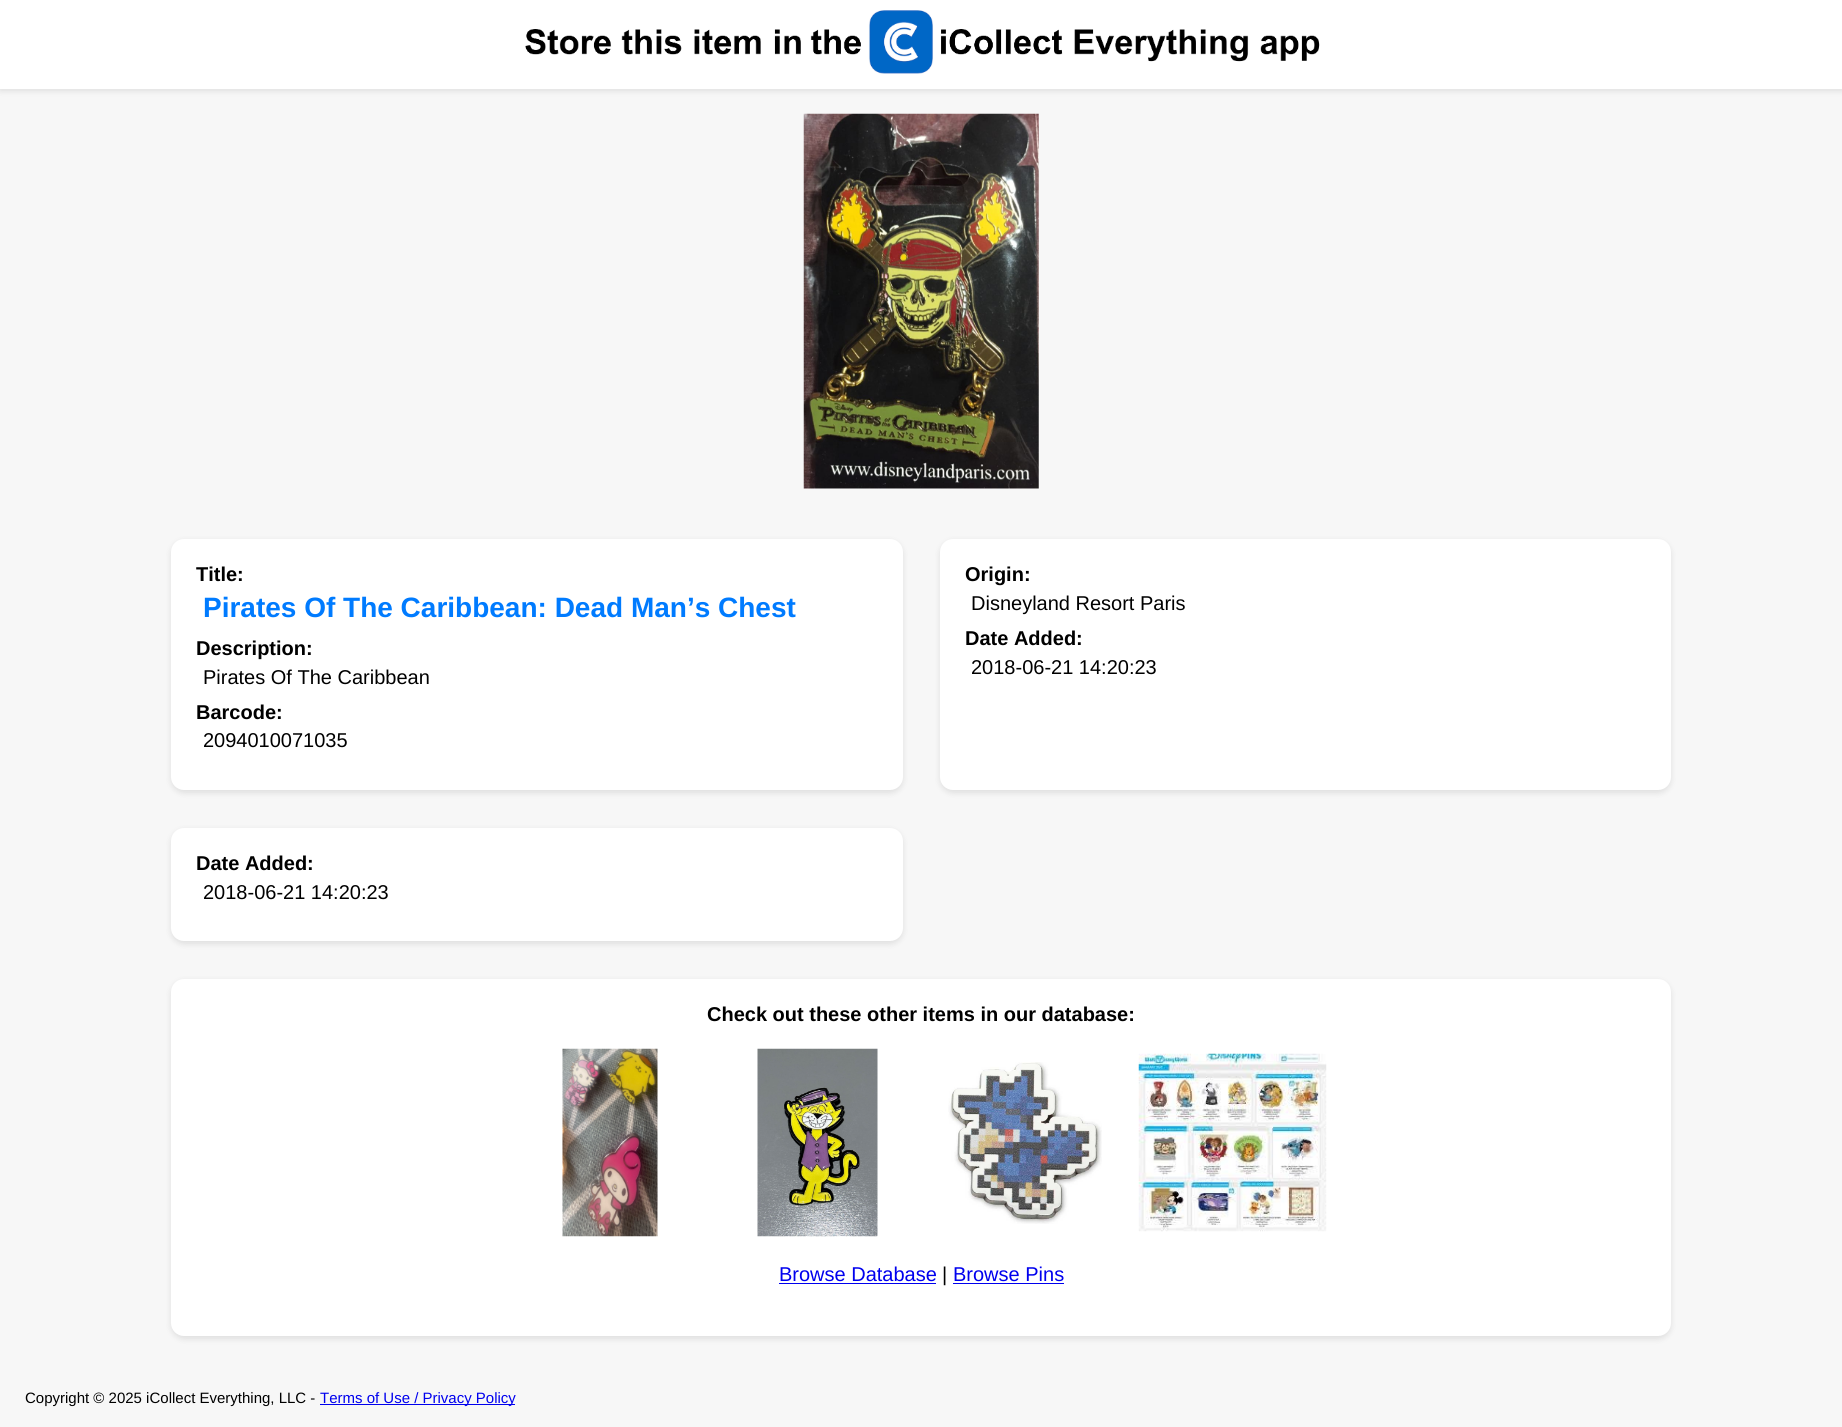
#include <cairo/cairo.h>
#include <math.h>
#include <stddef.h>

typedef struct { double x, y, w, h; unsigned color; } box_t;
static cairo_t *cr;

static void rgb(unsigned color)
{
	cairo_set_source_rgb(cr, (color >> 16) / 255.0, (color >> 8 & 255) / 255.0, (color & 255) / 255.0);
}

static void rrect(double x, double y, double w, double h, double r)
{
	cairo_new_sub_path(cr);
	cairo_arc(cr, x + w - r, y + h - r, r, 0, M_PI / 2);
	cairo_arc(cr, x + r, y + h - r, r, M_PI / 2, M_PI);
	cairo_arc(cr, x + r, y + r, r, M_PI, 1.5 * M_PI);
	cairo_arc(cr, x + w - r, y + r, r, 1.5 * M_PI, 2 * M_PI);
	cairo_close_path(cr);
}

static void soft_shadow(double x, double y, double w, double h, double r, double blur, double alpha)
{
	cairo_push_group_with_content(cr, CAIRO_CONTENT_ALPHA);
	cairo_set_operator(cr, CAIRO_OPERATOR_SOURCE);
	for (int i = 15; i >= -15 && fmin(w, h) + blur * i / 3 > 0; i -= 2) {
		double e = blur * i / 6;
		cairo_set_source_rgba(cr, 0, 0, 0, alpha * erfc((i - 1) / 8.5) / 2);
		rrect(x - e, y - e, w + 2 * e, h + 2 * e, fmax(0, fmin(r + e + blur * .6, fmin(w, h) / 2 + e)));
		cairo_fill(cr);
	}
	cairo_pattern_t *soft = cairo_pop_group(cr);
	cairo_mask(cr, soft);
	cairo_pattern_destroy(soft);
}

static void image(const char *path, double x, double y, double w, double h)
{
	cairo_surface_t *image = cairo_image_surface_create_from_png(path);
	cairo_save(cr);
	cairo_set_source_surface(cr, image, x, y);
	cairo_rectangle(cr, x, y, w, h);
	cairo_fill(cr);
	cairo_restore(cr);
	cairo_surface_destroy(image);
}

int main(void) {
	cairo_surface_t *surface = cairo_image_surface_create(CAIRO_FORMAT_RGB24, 1842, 1427);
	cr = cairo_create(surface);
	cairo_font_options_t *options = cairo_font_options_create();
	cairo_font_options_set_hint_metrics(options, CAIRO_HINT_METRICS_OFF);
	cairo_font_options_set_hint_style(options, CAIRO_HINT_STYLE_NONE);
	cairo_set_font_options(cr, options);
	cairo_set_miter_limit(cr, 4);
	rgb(0xf7f7f7);
	cairo_paint(cr);
	rgb(0x000000);
	soft_shadow(0, 3, 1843, 88, 0, 3, 0.1);
	rgb(0xffffff);
	cairo_rectangle(cr, 0, 0, 1842, 89);
	cairo_fill(cr);
	image("img/1.png", 525, 10, 795, 64);
	image("img/2.png", 803, 113, 236, 376);
	rgb(0x000000);
	soft_shadow(171, 541, 732, 252, 13, 3, 0.1);
	rgb(0xffffff);
	rrect(171, 539, 732, 251, 13);
	cairo_fill(cr);
	rgb(0x000000);
	soft_shadow(940, 541, 731, 252, 13, 3, 0.1);
	rgb(0xffffff);
	rrect(940, 539, 731, 251, 13);
	cairo_fill(cr);
	rgb(0x000000);
	soft_shadow(171, 830, 732, 114, 13, 3, 0.1);
	rgb(0xffffff);
	rrect(171, 828, 732, 113, 13);
	cairo_fill(cr);
	rgb(0x000000);
	soft_shadow(171, 981, 1500, 358, 13, 3, 0.1);
	rgb(0xffffff);
	rrect(171, 979, 1500, 357, 13);
	cairo_fill(cr);
	image("img/3.png", 562, 1048, 96, 189);
	image("img/4.png", 757, 1048, 121, 189);
	image("img/5.png", 948, 1062, 154, 162);
	image("img/6.png", 1138, 1053, 189, 179);
	{
		static const box_t items[] = {
			{779, 1283, 157, 1, 0x0000ee},
			{953, 1283, 111, 1, 0x0000ee},
			{320, 1404, 195, 1, 0x0000ee},
		};
		for (size_t i = 0; i < sizeof items / sizeof *items; i++) {
			rgb(items[i].color);
			cairo_rectangle(cr, items[i].x, items[i].y, items[i].w, items[i].h);
			cairo_fill(cr);
		}
	}
	cairo_select_font_face(cr, "Liberation Sans", CAIRO_FONT_SLANT_NORMAL, CAIRO_FONT_WEIGHT_BOLD);
	cairo_set_font_size(cr, 20);
	rgb(0x000000);
	cairo_move_to(cr, 196, 581);
	cairo_show_text(cr, "Title:");
	cairo_set_font_size(cr, 28);
	rgb(0x007bff);
	cairo_move_to(cr, 203, 617);
	cairo_show_text(cr, "Pirates Of The Caribbean: Dead Man’s Chest");
	cairo_set_font_size(cr, 20);
	rgb(0x000000);
	cairo_move_to(cr, 196, 655);
	cairo_show_text(cr, "Description:");
	cairo_select_font_face(cr, "Liberation Sans", CAIRO_FONT_SLANT_NORMAL, CAIRO_FONT_WEIGHT_NORMAL);
	cairo_move_to(cr, 203, 684);
	cairo_show_text(cr, "Pirates Of The Caribbean");
	cairo_select_font_face(cr, "Liberation Sans", CAIRO_FONT_SLANT_NORMAL, CAIRO_FONT_WEIGHT_BOLD);
	cairo_move_to(cr, 196, 719);
	cairo_show_text(cr, "Barcode:");
	cairo_select_font_face(cr, "Liberation Sans", CAIRO_FONT_SLANT_NORMAL, CAIRO_FONT_WEIGHT_NORMAL);
	cairo_move_to(cr, 203, 747);
	cairo_show_text(cr, "2094010071035");
	cairo_select_font_face(cr, "Liberation Sans", CAIRO_FONT_SLANT_NORMAL, CAIRO_FONT_WEIGHT_BOLD);
	cairo_move_to(cr, 965, 581);
	cairo_show_text(cr, "Origin:");
	cairo_select_font_face(cr, "Liberation Sans", CAIRO_FONT_SLANT_NORMAL, CAIRO_FONT_WEIGHT_NORMAL);
	cairo_move_to(cr, 971, 610);
	cairo_show_text(cr, "Disneyland Resort Paris");
	cairo_select_font_face(cr, "Liberation Sans", CAIRO_FONT_SLANT_NORMAL, CAIRO_FONT_WEIGHT_BOLD);
	cairo_move_to(cr, 965, 645);
	cairo_show_text(cr, "Date Added:");
	cairo_select_font_face(cr, "Liberation Sans", CAIRO_FONT_SLANT_NORMAL, CAIRO_FONT_WEIGHT_NORMAL);
	cairo_move_to(cr, 971, 674);
	cairo_show_text(cr, "2018-06-21 14:20:23");
	cairo_select_font_face(cr, "Liberation Sans", CAIRO_FONT_SLANT_NORMAL, CAIRO_FONT_WEIGHT_BOLD);
	cairo_move_to(cr, 196, 870);
	cairo_show_text(cr, "Date Added:");
	cairo_select_font_face(cr, "Liberation Sans", CAIRO_FONT_SLANT_NORMAL, CAIRO_FONT_WEIGHT_NORMAL);
	cairo_move_to(cr, 203, 899);
	cairo_show_text(cr, "2018-06-21 14:20:23");
	cairo_select_font_face(cr, "Liberation Sans", CAIRO_FONT_SLANT_NORMAL, CAIRO_FONT_WEIGHT_BOLD);
	cairo_move_to(cr, 707, 1021);
	cairo_show_text(cr, "Check out these other items in our database:");
	cairo_select_font_face(cr, "Liberation Sans", CAIRO_FONT_SLANT_NORMAL, CAIRO_FONT_WEIGHT_NORMAL);
	rgb(0x0000ee);
	cairo_move_to(cr, 779, 1281);
	cairo_show_text(cr, "Browse Database");
	rgb(0x000000);
	cairo_move_to(cr, 942, 1281);
	cairo_show_text(cr, "|");
	rgb(0x0000ee);
	cairo_move_to(cr, 953, 1281);
	cairo_show_text(cr, "Browse Pins");
	cairo_set_font_size(cr, 15);
	rgb(0x000000);
	cairo_move_to(cr, 25, 1403);
	cairo_show_text(cr, "Copyright © 2025 iCollect Everything, LLC -");
	rgb(0x0000ee);
	cairo_move_to(cr, 320, 1403);
	cairo_show_text(cr, "Terms of Use / Privacy Policy");
	cairo_surface_write_to_png(surface, "page.png");
	cairo_font_options_destroy(options);
	cairo_destroy(cr);
	cairo_surface_destroy(surface);
	return 0;
}
